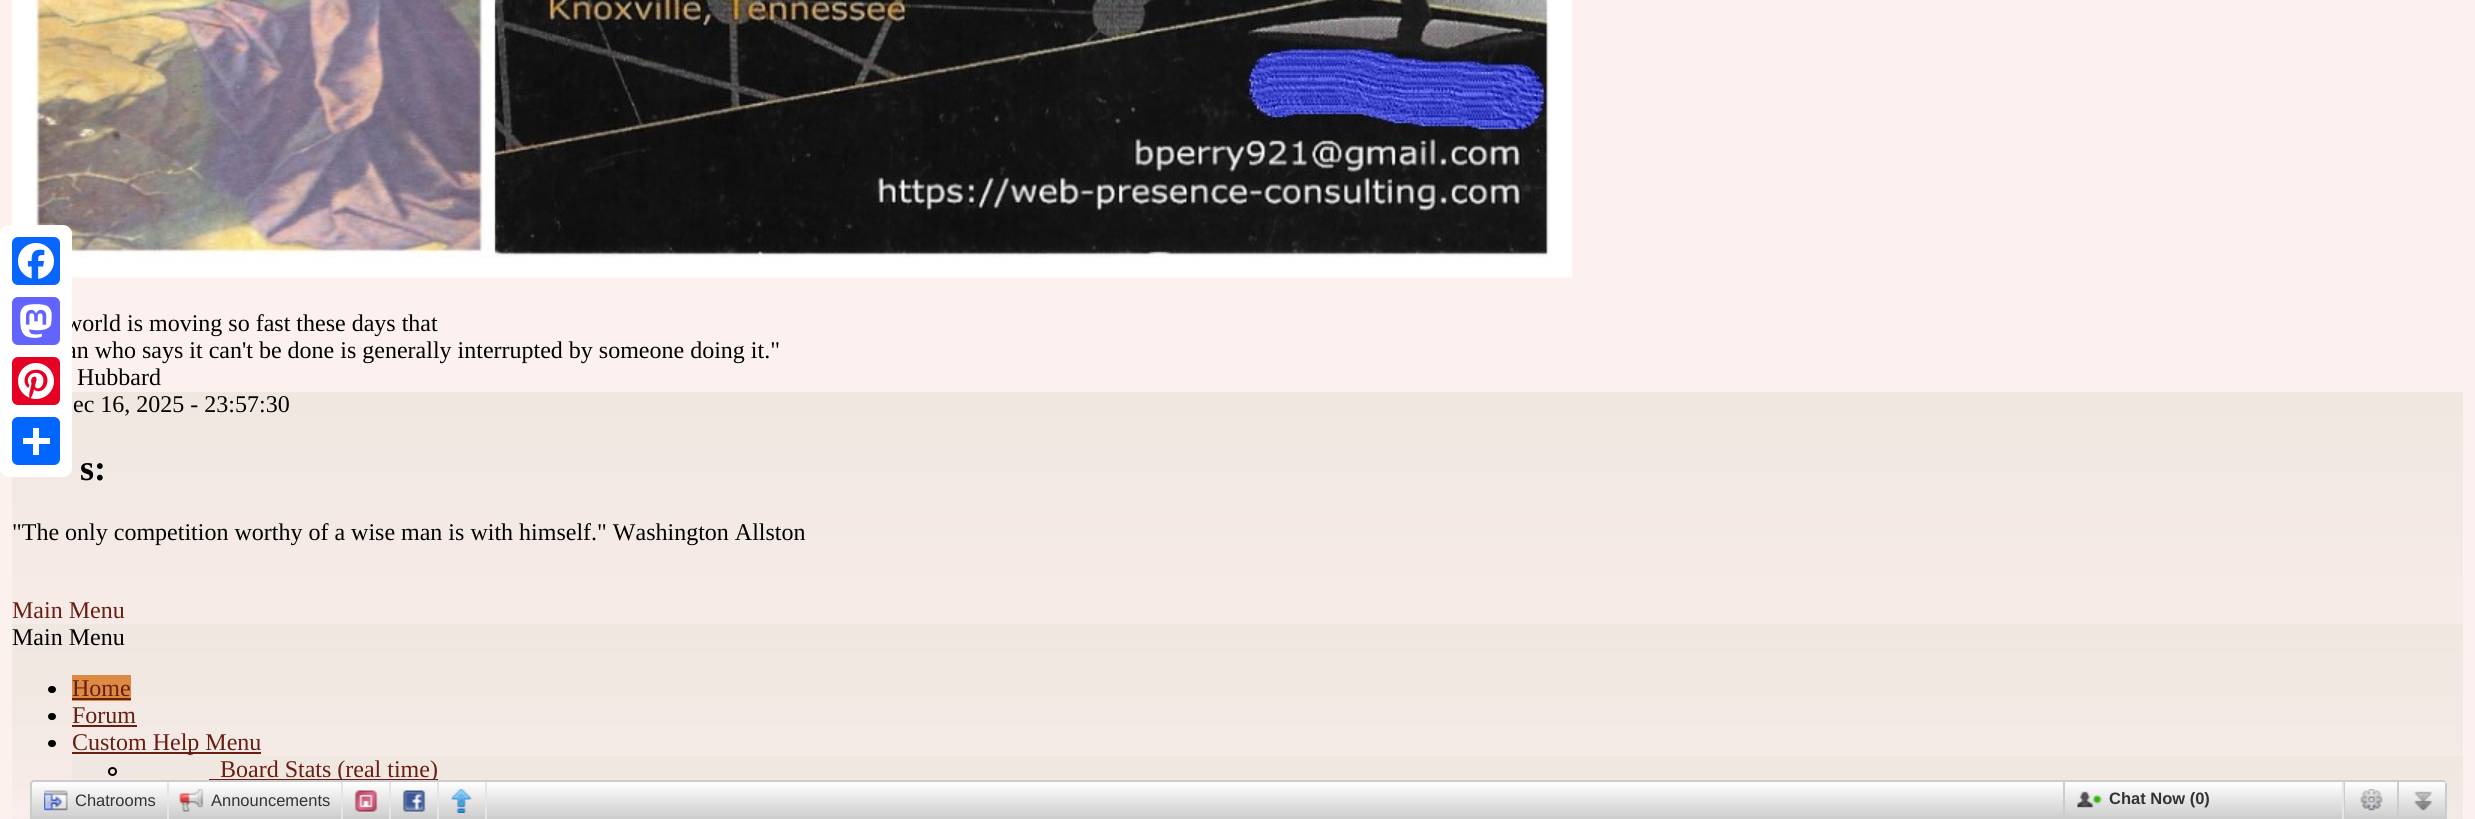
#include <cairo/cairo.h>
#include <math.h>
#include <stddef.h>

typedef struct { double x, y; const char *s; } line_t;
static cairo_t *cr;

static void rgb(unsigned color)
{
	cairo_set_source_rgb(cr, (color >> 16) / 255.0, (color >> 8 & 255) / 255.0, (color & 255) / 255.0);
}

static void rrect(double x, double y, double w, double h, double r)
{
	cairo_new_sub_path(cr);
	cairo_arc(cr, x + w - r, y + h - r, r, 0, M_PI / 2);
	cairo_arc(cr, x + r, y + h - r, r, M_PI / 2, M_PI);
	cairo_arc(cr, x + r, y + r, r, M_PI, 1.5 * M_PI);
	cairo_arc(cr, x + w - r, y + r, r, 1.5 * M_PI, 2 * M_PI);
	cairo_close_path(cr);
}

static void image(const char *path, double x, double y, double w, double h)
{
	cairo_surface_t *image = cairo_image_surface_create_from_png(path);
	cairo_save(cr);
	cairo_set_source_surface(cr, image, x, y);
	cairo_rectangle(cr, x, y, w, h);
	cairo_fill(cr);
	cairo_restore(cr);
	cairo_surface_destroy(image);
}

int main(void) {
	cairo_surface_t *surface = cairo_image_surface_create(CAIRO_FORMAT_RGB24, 2475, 819);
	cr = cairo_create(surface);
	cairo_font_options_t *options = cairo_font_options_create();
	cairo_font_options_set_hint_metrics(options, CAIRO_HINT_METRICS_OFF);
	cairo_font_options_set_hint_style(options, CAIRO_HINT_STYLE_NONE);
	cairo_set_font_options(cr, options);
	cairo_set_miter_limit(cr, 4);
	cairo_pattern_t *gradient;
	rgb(0xfcf1ef);
	cairo_paint(cr);
	image("img/1.png", 12, 0, 1560, 278);
	gradient = cairo_pattern_create_linear(1238, 391, 1238, 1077);
	cairo_pattern_add_color_stop_rgba(gradient, 0, 0.941, 0.906, 0.882, 1);
	cairo_pattern_add_color_stop_rgba(gradient, 0.7, 1, 0.941, 0.941, 1);
	cairo_set_source(cr, gradient);
	cairo_pattern_destroy(gradient);
	cairo_rectangle(cr, 12, 392, 2451, 399);
	cairo_fill(cr);
	gradient = cairo_pattern_create_linear(1238, 624, 1238, 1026);
	cairo_pattern_add_color_stop_rgba(gradient, 0, 0.941, 0.906, 0.882, 1);
	cairo_pattern_add_color_stop_rgba(gradient, 0.7, 0.941, 0.906, 0.882, 0);
	cairo_set_source(cr, gradient);
	cairo_pattern_destroy(gradient);
	cairo_rectangle(cr, 12, 624, 2451, 195);
	cairo_fill(cr);
	rgb(0x000000);
	rrect(48, 686, 8, 7, 3.5);
	cairo_fill(cr);
	rgb(0xdd8b42);
	cairo_rectangle(cr, 72, 675, 59, 26);
	cairo_fill(cr);
	rgb(0x681e11);
	cairo_rectangle(cr, 72, 698, 59, 2);
	cairo_fill(cr);
	rgb(0x000000);
	rrect(48, 713, 8, 7, 3.5);
	cairo_fill(cr);
	rgb(0x681e11);
	cairo_rectangle(cr, 72, 725, 65, 2);
	cairo_fill(cr);
	rgb(0x000000);
	rrect(48, 740, 8, 7, 3.5);
	cairo_fill(cr);
	rgb(0x681e11);
	cairo_rectangle(cr, 72, 752, 189, 2);
	cairo_fill(cr);
	gradient = cairo_pattern_create_linear(1268, 756, 1268, 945);
	cairo_pattern_add_color_stop_rgba(gradient, 0, 0.941, 0.906, 0.882, 1);
	cairo_pattern_add_color_stop_rgba(gradient, 0.7, 0.941, 0.906, 0.882, 0);
	cairo_set_source(cr, gradient);
	cairo_pattern_destroy(gradient);
	cairo_rectangle(cr, 72, 756, 2391, 63);
	cairo_fill(cr);
	cairo_arc(cr, 112.5, 771.5, 3.5, 0, 2 * M_PI);
	rgb(0x000000);
	cairo_stroke(cr);
	rgb(0x681e11);
	cairo_rectangle(cr, 209, 779, 229, 1);
	cairo_fill(cr);
	cairo_select_font_face(cr, "Liberation Serif", CAIRO_FONT_SLANT_NORMAL, CAIRO_FONT_WEIGHT_NORMAL);
	cairo_set_font_size(cr, 24);
	rgb(0x000000);
	{
		static const line_t items[] = {
			{65, 331, "world is moving so fast these days that"},
			{66, 358, "an who says it can't be done is generally interrupted by someone doing it.\""},
			{77, 385, "Hubbard"},
		};
		for (size_t i = 0; i < sizeof items / sizeof *items; i++) {
			cairo_move_to(cr, items[i].x, items[i].y);
			cairo_show_text(cr, items[i].s);
		}
	}
	rgb(0xffffff);
	rrect(0, 225, 72, 252, 9);
	cairo_fill(cr);
	rgb(0x0866ff);
	rrect(12, 237, 48, 48, 6);
	cairo_fill(cr);
	image("img/2.png", 18, 243, 36, 36);
	rgb(0x6364ff);
	rrect(12, 297, 48, 48, 6);
	cairo_fill(cr);
	image("img/3.png", 20, 304, 32, 34);
	rgb(0xe60023);
	rrect(12, 357, 48, 48, 6);
	cairo_fill(cr);
	image("img/4.png", 18, 363, 36, 36);
	rgb(0x0166ff);
	rrect(12, 417, 48, 48, 6);
	cairo_fill(cr);
	rgb(0xffffff);
	cairo_rectangle(cr, 33, 428, 6, 27);
	cairo_fill(cr);
	cairo_rectangle(cr, 23, 438, 27, 6);
	cairo_fill(cr);
	rgb(0x000000);
	cairo_move_to(cr, 73, 412);
	cairo_show_text(cr, "ec 16, 2025 - 23:57:30");
	cairo_select_font_face(cr, "Liberation Serif", CAIRO_FONT_SLANT_NORMAL, CAIRO_FONT_WEIGHT_BOLD);
	cairo_set_font_size(cr, 36);
	cairo_move_to(cr, 80, 480);
	cairo_show_text(cr, "s:");
	cairo_select_font_face(cr, "Liberation Serif", CAIRO_FONT_SLANT_NORMAL, CAIRO_FONT_WEIGHT_NORMAL);
	cairo_set_font_size(cr, 24);
	cairo_move_to(cr, 12, 540);
	cairo_show_text(cr, "\"The only competition worthy of a wise man is with himself.\" Washington Allston");
	rgb(0x681e11);
	cairo_move_to(cr, 12, 618);
	cairo_show_text(cr, "Main Menu");
	rgb(0x000000);
	cairo_move_to(cr, 12, 645);
	cairo_show_text(cr, "Main Menu");
	rgb(0x681e11);
	{
		static const line_t items[] = {
			{72, 696, "Home"},
			{72, 723, "Forum"},
			{72, 750, "Custom Help Menu"},
			{220, 777, "Board Stats (real time)"},
		};
		for (size_t i = 0; i < sizeof items / sizeof *items; i++) {
			cairo_move_to(cr, items[i].x, items[i].y);
			cairo_show_text(cr, items[i].s);
		}
	}
	cairo_save(cr);
	cairo_new_path(cr);
	cairo_move_to(cr, 35, 780);
	cairo_line_to(cr, 2442, 780);
	cairo_curve_to(cr, 2445, 780, 2447, 782, 2447, 785);
	cairo_line_to(cr, 2447, 819);
	cairo_line_to(cr, 30, 819);
	cairo_line_to(cr, 30, 785);
	cairo_curve_to(cr, 30, 782, 32, 780, 35, 780);
	cairo_close_path(cr);
	cairo_clip(cr);
	gradient = cairo_pattern_create_linear(32, 744, 32, 782);
	cairo_pattern_add_color_stop_rgba(gradient, 0, 1, 1, 1, 1);
	cairo_pattern_add_color_stop_rgba(gradient, 1, 0.8, 0.8, 0.8, 1);
	cairo_set_source(cr, gradient);
	cairo_pattern_destroy(gradient);
	cairo_rectangle(cr, 30, 780, 2417, 2);
	cairo_fill(cr);
	gradient = cairo_pattern_create_linear(32, 782, 32, 819);
	cairo_pattern_add_color_stop_rgba(gradient, 0, 1, 1, 1, 1);
	cairo_pattern_add_color_stop_rgba(gradient, 1, 0.8, 0.8, 0.8, 1);
	cairo_set_source(cr, gradient);
	cairo_pattern_destroy(gradient);
	cairo_rectangle(cr, 30, 782, 2417, 37);
	cairo_fill(cr);
	cairo_restore(cr);
	rgb(0xcccccc);
	cairo_set_fill_rule(cr, CAIRO_FILL_RULE_EVEN_ODD);
	cairo_new_path(cr);
	cairo_move_to(cr, 34, 780);
	cairo_line_to(cr, 2442, 780);
	cairo_curve_to(cr, 2444, 780, 2446, 782, 2446, 784);
	cairo_line_to(cr, 2446, 819);
	cairo_line_to(cr, 30, 819);
	cairo_line_to(cr, 30, 784);
	cairo_curve_to(cr, 30, 782, 32, 780, 34, 780);
	cairo_close_path(cr);
	cairo_move_to(cr, 34, 782);
	cairo_line_to(cr, 2442, 782);
	cairo_curve_to(cr, 2444, 782, 2446, 783, 2446, 784);
	cairo_line_to(cr, 2446, 819);
	cairo_line_to(cr, 32, 819);
	cairo_line_to(cr, 32, 784);
	cairo_curve_to(cr, 32, 783, 33, 782, 34, 782);
	cairo_close_path(cr);
	cairo_fill(cr);
	rgb(0xe5e5e5);
	cairo_rectangle(cr, 167, 782, 2, 37);
	cairo_fill(cr);
	image("img/5.png", 44, 790, 24, 21);
	cairo_select_font_face(cr, "Liberation Sans", CAIRO_FONT_SLANT_NORMAL, CAIRO_FONT_WEIGHT_NORMAL);
	cairo_set_font_size(cr, 16.5);
	rgb(0x333333);
	cairo_move_to(cr, 75, 806);
	cairo_show_text(cr, "Chatrooms");
	rgb(0xe5e5e5);
	cairo_rectangle(cr, 341, 782, 2, 37);
	cairo_fill(cr);
	image("img/6.png", 179, 789, 25, 23);
	rgb(0x333333);
	cairo_move_to(cr, 211, 806);
	cairo_show_text(cr, "Announcements");
	rgb(0xe5e5e5);
	cairo_rectangle(cr, 389, 782, 2, 37);
	cairo_fill(cr);
	image("img/7.png", 354, 790, 24, 22);
	cairo_rectangle(cr, 437, 782, 2, 37);
	cairo_fill(cr);
	image("img/8.png", 402, 790, 24, 22);
	cairo_rectangle(cr, 485, 782, 2, 37);
	cairo_fill(cr);
	image("img/9.png", 450, 789, 22, 24);
	cairo_rectangle(cr, 2342, 782, 2, 37);
	cairo_fill(cr);
	rgb(0xcccccc);
	cairo_rectangle(cr, 2063, 782, 2, 37);
	cairo_fill(cr);
	image("img/10.png", 2077, 791, 26, 17);
	cairo_select_font_face(cr, "Liberation Sans", CAIRO_FONT_SLANT_NORMAL, CAIRO_FONT_WEIGHT_BOLD);
	rgb(0x333333);
	cairo_move_to(cr, 2109, 804);
	cairo_show_text(cr, "Chat Now (0)");
	rgb(0xcccccc);
	cairo_rectangle(cr, 2397, 782, 2, 37);
	cairo_fill(cr);
	cairo_rectangle(cr, 2344, 782, 1, 37);
	cairo_fill(cr);
	image("img/11.png", 2360, 789, 23, 22);
	image("img/12.png", 2414, 791, 19, 20);
	cairo_rectangle(cr, 2445, 783, 2, 36);
	cairo_fill(cr);
	cairo_surface_write_to_png(surface, "page.png");
	cairo_font_options_destroy(options);
	cairo_destroy(cr);
	cairo_surface_destroy(surface);
	return 0;
}
